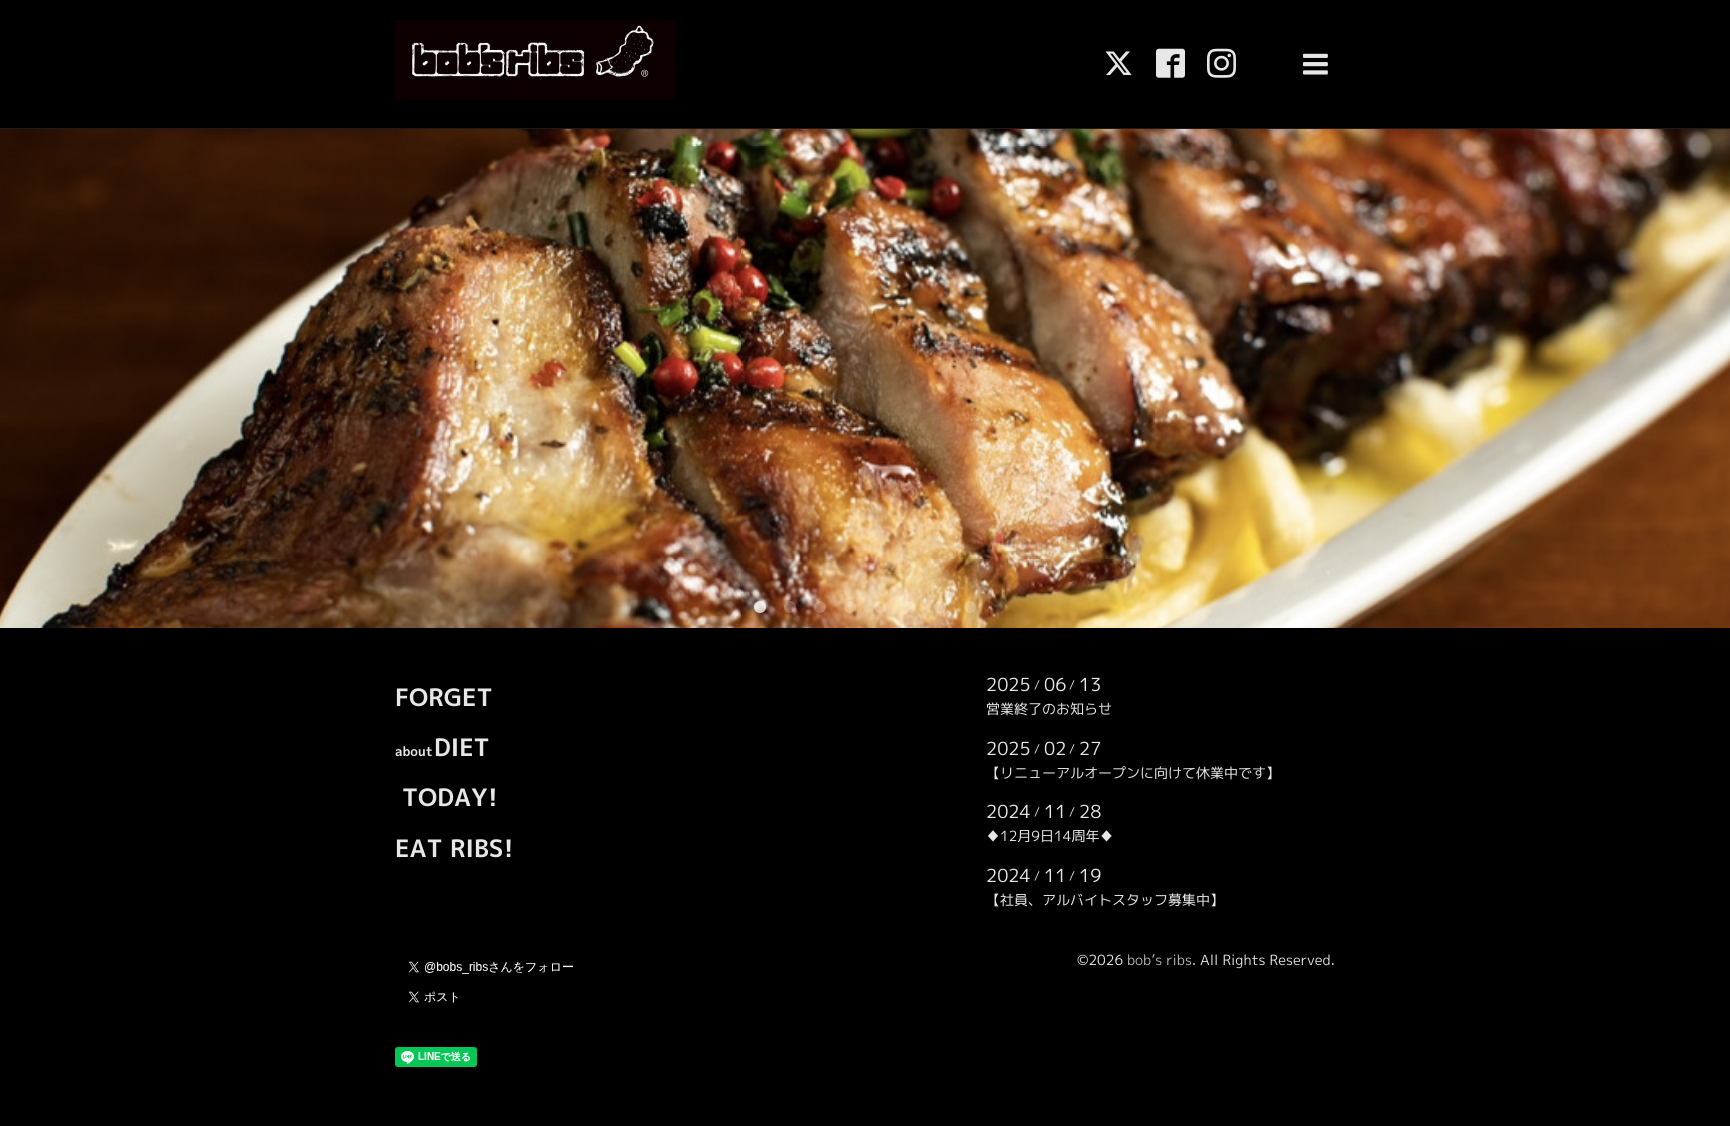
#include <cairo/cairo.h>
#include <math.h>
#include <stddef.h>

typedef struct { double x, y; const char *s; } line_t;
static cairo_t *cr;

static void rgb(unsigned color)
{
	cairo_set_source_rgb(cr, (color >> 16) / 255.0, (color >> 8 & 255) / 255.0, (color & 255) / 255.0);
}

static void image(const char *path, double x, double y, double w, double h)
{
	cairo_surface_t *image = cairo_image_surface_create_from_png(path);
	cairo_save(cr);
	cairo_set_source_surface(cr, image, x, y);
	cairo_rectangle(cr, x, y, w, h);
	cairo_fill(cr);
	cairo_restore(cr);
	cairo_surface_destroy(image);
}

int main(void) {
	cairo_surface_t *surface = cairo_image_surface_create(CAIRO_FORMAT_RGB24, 1730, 1126);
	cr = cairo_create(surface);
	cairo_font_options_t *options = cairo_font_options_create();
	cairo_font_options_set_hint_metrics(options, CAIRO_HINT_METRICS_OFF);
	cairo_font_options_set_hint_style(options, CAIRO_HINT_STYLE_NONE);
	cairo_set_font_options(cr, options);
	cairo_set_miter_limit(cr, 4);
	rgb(0x000000);
	cairo_paint(cr);
	rgb(0x1c1c1c);
	cairo_rectangle(cr, 0, 128, 1730, 1);
	cairo_fill(cr);
	image("img/1.png", 395, 20, 280, 80);
	image("img/2.png", 1105, 51, 27, 24);
	image("img/3.png", 1156, 48, 29, 30);
	image("img/4.png", 1207, 48, 29, 30);
	image("img/5.png", 1303, 53, 25, 22);
	image("img/6.png", 0, 129, 1730, 499);
	image("img/7.png", 754, 601, 12, 12);
	image("img/8.png", 784, 601, 12, 12);
	image("img/9.png", 814, 601, 12, 12);
	image("img/10.png", 844, 601, 12, 12);
	image("img/11.png", 874, 601, 12, 12);
	image("img/12.png", 904, 601, 12, 12);
	image("img/13.png", 934, 601, 12, 12);
	image("img/14.png", 964, 601, 12, 12);
	image("img/15.png", 408, 961, 165, 13);
	image("img/16.png", 408, 991, 50, 12);
	image("img/17.png", 395, 1047, 82, 20);
	cairo_select_font_face(cr, "M PLUS 1p", CAIRO_FONT_SLANT_NORMAL, CAIRO_FONT_WEIGHT_BOLD);
	cairo_set_font_size(cr, 24);
	rgb(0xe7e7e7);
	cairo_move_to(cr, 395, 706);
	cairo_show_text(cr, "FORGET");
	cairo_set_font_size(cr, 13);
	cairo_move_to(cr, 395, 756);
	cairo_show_text(cr, "about");
	cairo_set_font_size(cr, 24);
	{
		static const line_t items[] = {
			{434, 756, "DIET"},
			{402, 806, "TODAY!"},
			{395, 857, "EAT RIBS!"},
		};
		for (size_t i = 0; i < sizeof items / sizeof *items; i++) {
			cairo_move_to(cr, items[i].x, items[i].y);
			cairo_show_text(cr, items[i].s);
		}
	}
	cairo_select_font_face(cr, "M PLUS 1p", CAIRO_FONT_SLANT_NORMAL, CAIRO_FONT_WEIGHT_NORMAL);
	cairo_set_font_size(cr, 18);
	cairo_move_to(cr, 986, 691);
	cairo_show_text(cr, "2025");
	cairo_set_font_size(cr, 12);
	cairo_move_to(cr, 1034, 689);
	cairo_show_text(cr, "/");
	cairo_set_font_size(cr, 18);
	cairo_move_to(cr, 1044, 691);
	cairo_show_text(cr, "06");
	cairo_set_font_size(cr, 12);
	cairo_move_to(cr, 1069, 689);
	cairo_show_text(cr, "/");
	cairo_set_font_size(cr, 18);
	cairo_move_to(cr, 1079, 691);
	cairo_show_text(cr, "13");
	cairo_set_font_size(cr, 14);
	cairo_move_to(cr, 986, 714);
	cairo_show_text(cr, "営業終了のお知らせ");
	cairo_set_font_size(cr, 18);
	cairo_move_to(cr, 986, 755);
	cairo_show_text(cr, "2025");
	cairo_set_font_size(cr, 12);
	cairo_move_to(cr, 1034, 753);
	cairo_show_text(cr, "/");
	cairo_set_font_size(cr, 18);
	cairo_move_to(cr, 1044, 755);
	cairo_show_text(cr, "02");
	cairo_set_font_size(cr, 12);
	cairo_move_to(cr, 1069, 753);
	cairo_show_text(cr, "/");
	cairo_set_font_size(cr, 18);
	cairo_move_to(cr, 1079, 755);
	cairo_show_text(cr, "27");
	cairo_set_font_size(cr, 14);
	cairo_move_to(cr, 986, 778);
	cairo_show_text(cr, "【リニューアルオープンに向けて休業中です】");
	cairo_set_font_size(cr, 18);
	cairo_move_to(cr, 986, 818);
	cairo_show_text(cr, "2024");
	cairo_set_font_size(cr, 12);
	cairo_move_to(cr, 1034, 816);
	cairo_show_text(cr, "/");
	cairo_set_font_size(cr, 18);
	cairo_move_to(cr, 1044, 818);
	cairo_show_text(cr, "11");
	cairo_set_font_size(cr, 12);
	cairo_move_to(cr, 1069, 816);
	cairo_show_text(cr, "/");
	cairo_set_font_size(cr, 18);
	cairo_move_to(cr, 1079, 818);
	cairo_show_text(cr, "28");
	cairo_set_font_size(cr, 14);
	cairo_move_to(cr, 986, 841);
	cairo_show_text(cr, "♦12月9日14周年♦");
	cairo_set_font_size(cr, 18);
	cairo_move_to(cr, 986, 882);
	cairo_show_text(cr, "2024");
	cairo_set_font_size(cr, 12);
	cairo_move_to(cr, 1034, 880);
	cairo_show_text(cr, "/");
	cairo_set_font_size(cr, 18);
	cairo_move_to(cr, 1044, 882);
	cairo_show_text(cr, "11");
	cairo_set_font_size(cr, 12);
	cairo_move_to(cr, 1069, 880);
	cairo_show_text(cr, "/");
	cairo_set_font_size(cr, 18);
	cairo_move_to(cr, 1079, 882);
	cairo_show_text(cr, "19");
	cairo_set_font_size(cr, 14);
	cairo_move_to(cr, 986, 905);
	cairo_show_text(cr, "【社員、アルバイトスタッフ募集中】");
	cairo_move_to(cr, 1077, 965);
	cairo_show_text(cr, "©2026");
	rgb(0xb9b9b9);
	cairo_move_to(cr, 1127, 965);
	cairo_show_text(cr, "bob’s ribs");
	rgb(0xe7e7e7);
	cairo_move_to(cr, 1192, 965);
	cairo_show_text(cr, ". All Rights Reserved.");
	cairo_surface_write_to_png(surface, "page.png");
	cairo_font_options_destroy(options);
	cairo_destroy(cr);
	cairo_surface_destroy(surface);
	return 0;
}
